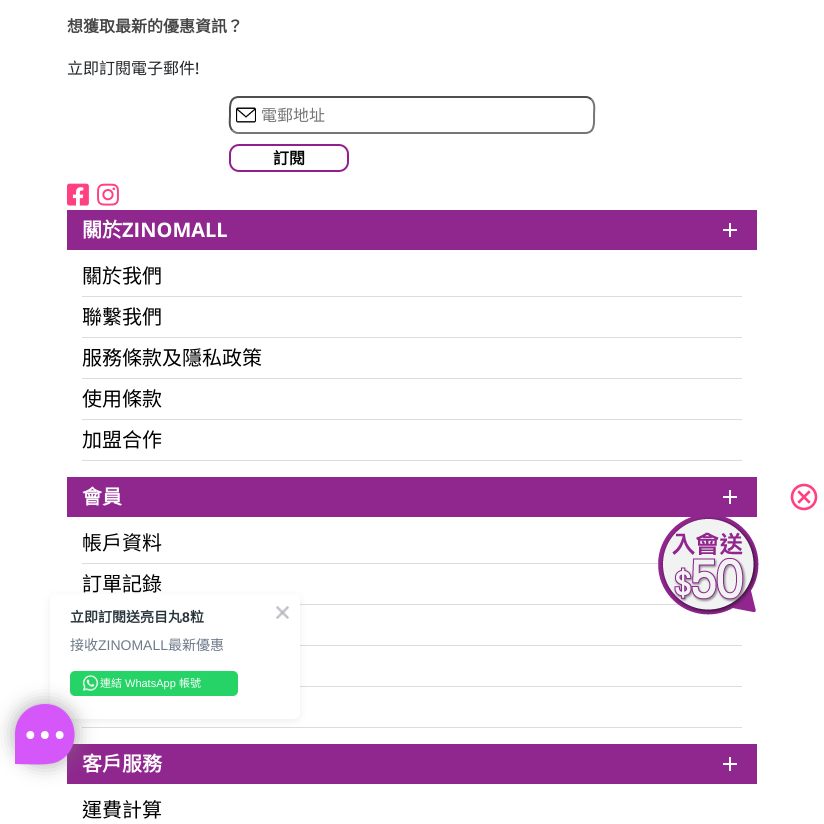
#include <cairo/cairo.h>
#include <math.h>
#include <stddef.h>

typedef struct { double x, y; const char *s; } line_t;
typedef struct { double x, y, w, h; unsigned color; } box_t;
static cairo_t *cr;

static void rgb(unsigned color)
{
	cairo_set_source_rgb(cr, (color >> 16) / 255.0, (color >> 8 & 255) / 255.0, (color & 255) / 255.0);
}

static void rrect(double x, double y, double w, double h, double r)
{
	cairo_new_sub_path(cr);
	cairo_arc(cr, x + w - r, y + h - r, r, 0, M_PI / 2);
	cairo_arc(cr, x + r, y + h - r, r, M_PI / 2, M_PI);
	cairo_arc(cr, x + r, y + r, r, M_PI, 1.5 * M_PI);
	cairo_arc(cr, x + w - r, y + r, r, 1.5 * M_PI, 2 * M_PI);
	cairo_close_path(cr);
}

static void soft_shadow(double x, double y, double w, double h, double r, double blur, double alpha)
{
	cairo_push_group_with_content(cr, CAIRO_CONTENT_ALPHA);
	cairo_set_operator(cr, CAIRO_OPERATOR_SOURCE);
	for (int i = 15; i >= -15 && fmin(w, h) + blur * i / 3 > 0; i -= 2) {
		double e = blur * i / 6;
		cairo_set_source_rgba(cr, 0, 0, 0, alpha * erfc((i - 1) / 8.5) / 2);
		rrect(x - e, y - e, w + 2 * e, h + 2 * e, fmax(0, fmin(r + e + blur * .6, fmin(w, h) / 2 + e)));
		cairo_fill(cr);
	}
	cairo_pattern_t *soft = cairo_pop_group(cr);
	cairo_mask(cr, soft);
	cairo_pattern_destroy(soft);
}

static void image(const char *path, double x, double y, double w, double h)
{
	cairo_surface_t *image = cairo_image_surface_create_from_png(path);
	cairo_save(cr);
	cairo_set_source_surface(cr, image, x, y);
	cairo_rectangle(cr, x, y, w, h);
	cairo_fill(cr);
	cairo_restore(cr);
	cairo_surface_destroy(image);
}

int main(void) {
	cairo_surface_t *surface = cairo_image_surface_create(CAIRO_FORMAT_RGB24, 824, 824);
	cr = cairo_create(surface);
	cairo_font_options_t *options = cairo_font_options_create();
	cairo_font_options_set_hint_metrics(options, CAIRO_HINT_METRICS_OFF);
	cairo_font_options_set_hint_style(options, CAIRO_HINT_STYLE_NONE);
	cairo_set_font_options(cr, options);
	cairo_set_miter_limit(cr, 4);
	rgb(0xffffff);
	cairo_paint(cr);
	image("img/1.png", 236, 107, 20, 16);
	cairo_new_path(cr);
	cairo_move_to(cr, 591.5, 99.5);
	cairo_curve_to(cr, 595.5, 103.5, 594, 110, 594, 115);
	cairo_curve_to(cr, 594, 122, 595.5, 133, 585, 133);
	cairo_line_to(cr, 238, 133);
	cairo_curve_to(cr, 236, 133, 234, 132, 232.5, 130.5);
	rgb(0x767676);
	cairo_stroke(cr);
	cairo_new_path(cr);
	cairo_move_to(cr, 232.5, 130.5);
	cairo_curve_to(cr, 228.5, 126.5, 230, 120, 230, 115);
	cairo_curve_to(cr, 230, 108, 228.5, 97, 239, 97);
	cairo_line_to(cr, 586, 97);
	cairo_curve_to(cr, 588, 97, 590, 98, 591.5, 99.5);
	rgb(0x4f4f4f);
	cairo_stroke(cr);
	rrect(230, 145, 118, 26, 9);
	rgb(0x911f90);
	cairo_stroke(cr);
	image("img/2.png", 67, 183, 22, 23);
	image("img/3.png", 97, 183, 22, 23);
	rgb(0x90278e);
	cairo_rectangle(cr, 67, 210, 690, 40);
	cairo_fill(cr);
	image("img/4.png", 723, 223, 14, 14);
	{
		static const box_t items[] = {
			{82, 296, 660, 1, 0xdcdcdc},
			{82, 337, 660, 1, 0xdcdcdc},
			{82, 378, 660, 1, 0xdcdcdc},
			{82, 419, 660, 1, 0xdcdcdc},
			{82, 460, 660, 1, 0xdcdcdc},
			{67, 477, 690, 40, 0x90278e},
		};
		for (size_t i = 0; i < sizeof items / sizeof *items; i++) {
			rgb(items[i].color);
			cairo_rectangle(cr, items[i].x, items[i].y, items[i].w, items[i].h);
			cairo_fill(cr);
		}
	}
	image("img/4.png", 723, 490, 14, 14);
	{
		static const box_t items[] = {
			{82, 563, 577, 1, 0xdcdcdc},
			{300, 604, 379, 1, 0xdcdcdc},
			{300, 645, 442, 1, 0xdcdcdc},
			{300, 686, 442, 1, 0xdcdcdc},
			{82, 727, 660, 1, 0xdcdcdc},
			{67, 744, 690, 40, 0x90278e},
		};
		for (size_t i = 0; i < sizeof items / sizeof *items; i++) {
			rgb(items[i].color);
			cairo_rectangle(cr, items[i].x, items[i].y, items[i].w, items[i].h);
			cairo_fill(cr);
		}
	}
	image("img/4.png", 723, 757, 14, 14);
	image("img/5.png", 790, 483, 28, 28);
	image("img/6.png", 658, 517, 101, 98);
	rgb(0x232f35);
	soft_shadow(50, 596, 250, 125, 6, 4, 0.09);
	rgb(0xffffff);
	rrect(50, 594, 250, 125, 6);
	cairo_fill(cr);
	image("img/7.png", 276, 606, 13, 13);
	rgb(0x25d366);
	rrect(70, 671, 168, 25, 5);
	cairo_fill(cr);
	image("img/8.png", 82, 675, 17, 16);
	rgb(0x777777);
	soft_shadow(15, 704, 60, 60, 30, 10, 0.64);
	rgb(0xd557fa);
	cairo_new_path(cr);
	cairo_move_to(cr, 45, 704);
	cairo_curve_to(cr, 28, 704, 15, 717, 15, 734);
	cairo_line_to(cr, 15, 764);
	cairo_curve_to(cr, 26, 764, 47, 766, 57, 762);
	cairo_curve_to(cr, 86, 749, 77, 704, 45, 704);
	cairo_close_path(cr);
	cairo_fill(cr);
	rgb(0xffffff);
	cairo_new_path(cr);
	cairo_move_to(cr, 59.5, 731);
	cairo_curve_to(cr, 54.5, 731, 54.5, 739, 59.5, 739);
	cairo_curve_to(cr, 65, 739, 65, 731, 59.5, 731);
	cairo_close_path(cr);
	cairo_move_to(cr, 30.5, 731);
	cairo_curve_to(cr, 25, 731, 25, 739, 30.5, 739);
	cairo_curve_to(cr, 35.5, 739, 35.5, 731, 30.5, 731);
	cairo_close_path(cr);
	cairo_fill(cr);
	cairo_new_path(cr);
	cairo_move_to(cr, 45, 731);
	cairo_curve_to(cr, 39.5, 731, 39.5, 739, 45, 739);
	cairo_curve_to(cr, 50, 739, 50, 731, 45, 731);
	cairo_close_path(cr);
	cairo_fill(cr);
	cairo_select_font_face(cr, "Noto Sans CJK HK", CAIRO_FONT_SLANT_NORMAL, CAIRO_FONT_WEIGHT_BOLD);
	cairo_set_font_size(cr, 16);
	rgb(0x444444);
	cairo_move_to(cr, 67, 32);
	cairo_show_text(cr, "想獲取最新的優惠資訊？");
	cairo_select_font_face(cr, "Noto Sans CJK HK", CAIRO_FONT_SLANT_NORMAL, CAIRO_FONT_WEIGHT_NORMAL);
	rgb(0x212529);
	cairo_move_to(cr, 67, 74);
	cairo_show_text(cr, "立即訂閱電子郵件");
	cairo_select_font_face(cr, "Open Sans Medium", CAIRO_FONT_SLANT_NORMAL, CAIRO_FONT_WEIGHT_NORMAL);
	cairo_move_to(cr, 195, 74);
	cairo_show_text(cr, "!");
	cairo_select_font_face(cr, "Noto Sans CJK HK", CAIRO_FONT_SLANT_NORMAL, CAIRO_FONT_WEIGHT_NORMAL);
	rgb(0x757575);
	cairo_move_to(cr, 261, 121);
	cairo_show_text(cr, "電郵地址");
	cairo_select_font_face(cr, "Noto Sans CJK HK", CAIRO_FONT_SLANT_NORMAL, CAIRO_FONT_WEIGHT_BOLD);
	rgb(0x000000);
	cairo_move_to(cr, 273, 164);
	cairo_show_text(cr, "訂閱");
	cairo_set_font_size(cr, 20);
	rgb(0xffffff);
	cairo_move_to(cr, 82, 237);
	cairo_show_text(cr, "關於");
	cairo_select_font_face(cr, "Open Sans", CAIRO_FONT_SLANT_NORMAL, CAIRO_FONT_WEIGHT_BOLD);
	cairo_move_to(cr, 122, 237);
	cairo_show_text(cr, "ZINOMALL");
	cairo_select_font_face(cr, "Noto Sans CJK HK", CAIRO_FONT_SLANT_NORMAL, CAIRO_FONT_WEIGHT_NORMAL);
	rgb(0x000000);
	{
		static const line_t items[] = {
			{82, 283, "關於我們"},
			{82, 324, "聯繫我們"},
			{82, 365, "服務條款及隱私政策"},
			{82, 406, "使用條款"},
			{82, 447, "加盟合作"},
		};
		for (size_t i = 0; i < sizeof items / sizeof *items; i++) {
			cairo_move_to(cr, items[i].x, items[i].y);
			cairo_show_text(cr, items[i].s);
		}
	}
	cairo_select_font_face(cr, "Noto Sans CJK HK", CAIRO_FONT_SLANT_NORMAL, CAIRO_FONT_WEIGHT_BOLD);
	rgb(0xffffff);
	cairo_move_to(cr, 82, 504);
	cairo_show_text(cr, "會員");
	cairo_select_font_face(cr, "Noto Sans CJK HK", CAIRO_FONT_SLANT_NORMAL, CAIRO_FONT_WEIGHT_NORMAL);
	rgb(0x000000);
	cairo_move_to(cr, 82, 550);
	cairo_show_text(cr, "帳戶資料");
	cairo_move_to(cr, 82, 591);
	cairo_show_text(cr, "訂單記錄");
	cairo_select_font_face(cr, "Noto Sans CJK HK", CAIRO_FONT_SLANT_NORMAL, CAIRO_FONT_WEIGHT_BOLD);
	rgb(0xffffff);
	cairo_move_to(cr, 82, 771);
	cairo_show_text(cr, "客戶服務");
	cairo_select_font_face(cr, "Noto Sans CJK HK", CAIRO_FONT_SLANT_NORMAL, CAIRO_FONT_WEIGHT_NORMAL);
	rgb(0x000000);
	cairo_move_to(cr, 82, 817);
	cairo_show_text(cr, "運費計算");
	cairo_select_font_face(cr, "Noto Sans CJK HK", CAIRO_FONT_SLANT_NORMAL, CAIRO_FONT_WEIGHT_BOLD);
	cairo_set_font_size(cr, 14);
	rgb(0x263238);
	cairo_move_to(cr, 70, 622);
	cairo_show_text(cr, "立即訂閱送亮目丸");
	cairo_select_font_face(cr, "Liberation Sans", CAIRO_FONT_SLANT_NORMAL, CAIRO_FONT_WEIGHT_BOLD);
	cairo_move_to(cr, 182, 622);
	cairo_show_text(cr, "8");
	cairo_select_font_face(cr, "Noto Sans CJK HK", CAIRO_FONT_SLANT_NORMAL, CAIRO_FONT_WEIGHT_BOLD);
	cairo_move_to(cr, 190, 622);
	cairo_show_text(cr, "粒");
	cairo_select_font_face(cr, "Noto Sans CJK HK", CAIRO_FONT_SLANT_NORMAL, CAIRO_FONT_WEIGHT_NORMAL);
	rgb(0x6e7a89);
	cairo_move_to(cr, 70, 650);
	cairo_show_text(cr, "接收");
	cairo_select_font_face(cr, "Liberation Sans", CAIRO_FONT_SLANT_NORMAL, CAIRO_FONT_WEIGHT_NORMAL);
	cairo_move_to(cr, 98, 650);
	cairo_show_text(cr, "ZINOMALL");
	cairo_select_font_face(cr, "Noto Sans CJK HK", CAIRO_FONT_SLANT_NORMAL, CAIRO_FONT_WEIGHT_NORMAL);
	cairo_move_to(cr, 168, 650);
	cairo_show_text(cr, "最新優惠");
	cairo_set_font_size(cr, 11);
	rgb(0xffffff);
	cairo_move_to(cr, 100, 687);
	cairo_show_text(cr, "連結");
	cairo_select_font_face(cr, "Liberation Sans", CAIRO_FONT_SLANT_NORMAL, CAIRO_FONT_WEIGHT_NORMAL);
	cairo_move_to(cr, 125, 687);
	cairo_show_text(cr, "WhatsApp");
	cairo_select_font_face(cr, "Noto Sans CJK HK", CAIRO_FONT_SLANT_NORMAL, CAIRO_FONT_WEIGHT_NORMAL);
	cairo_move_to(cr, 179, 687);
	cairo_show_text(cr, "帳號");
	cairo_surface_write_to_png(surface, "page.png");
	cairo_font_options_destroy(options);
	cairo_destroy(cr);
	cairo_surface_destroy(surface);
	return 0;
}
